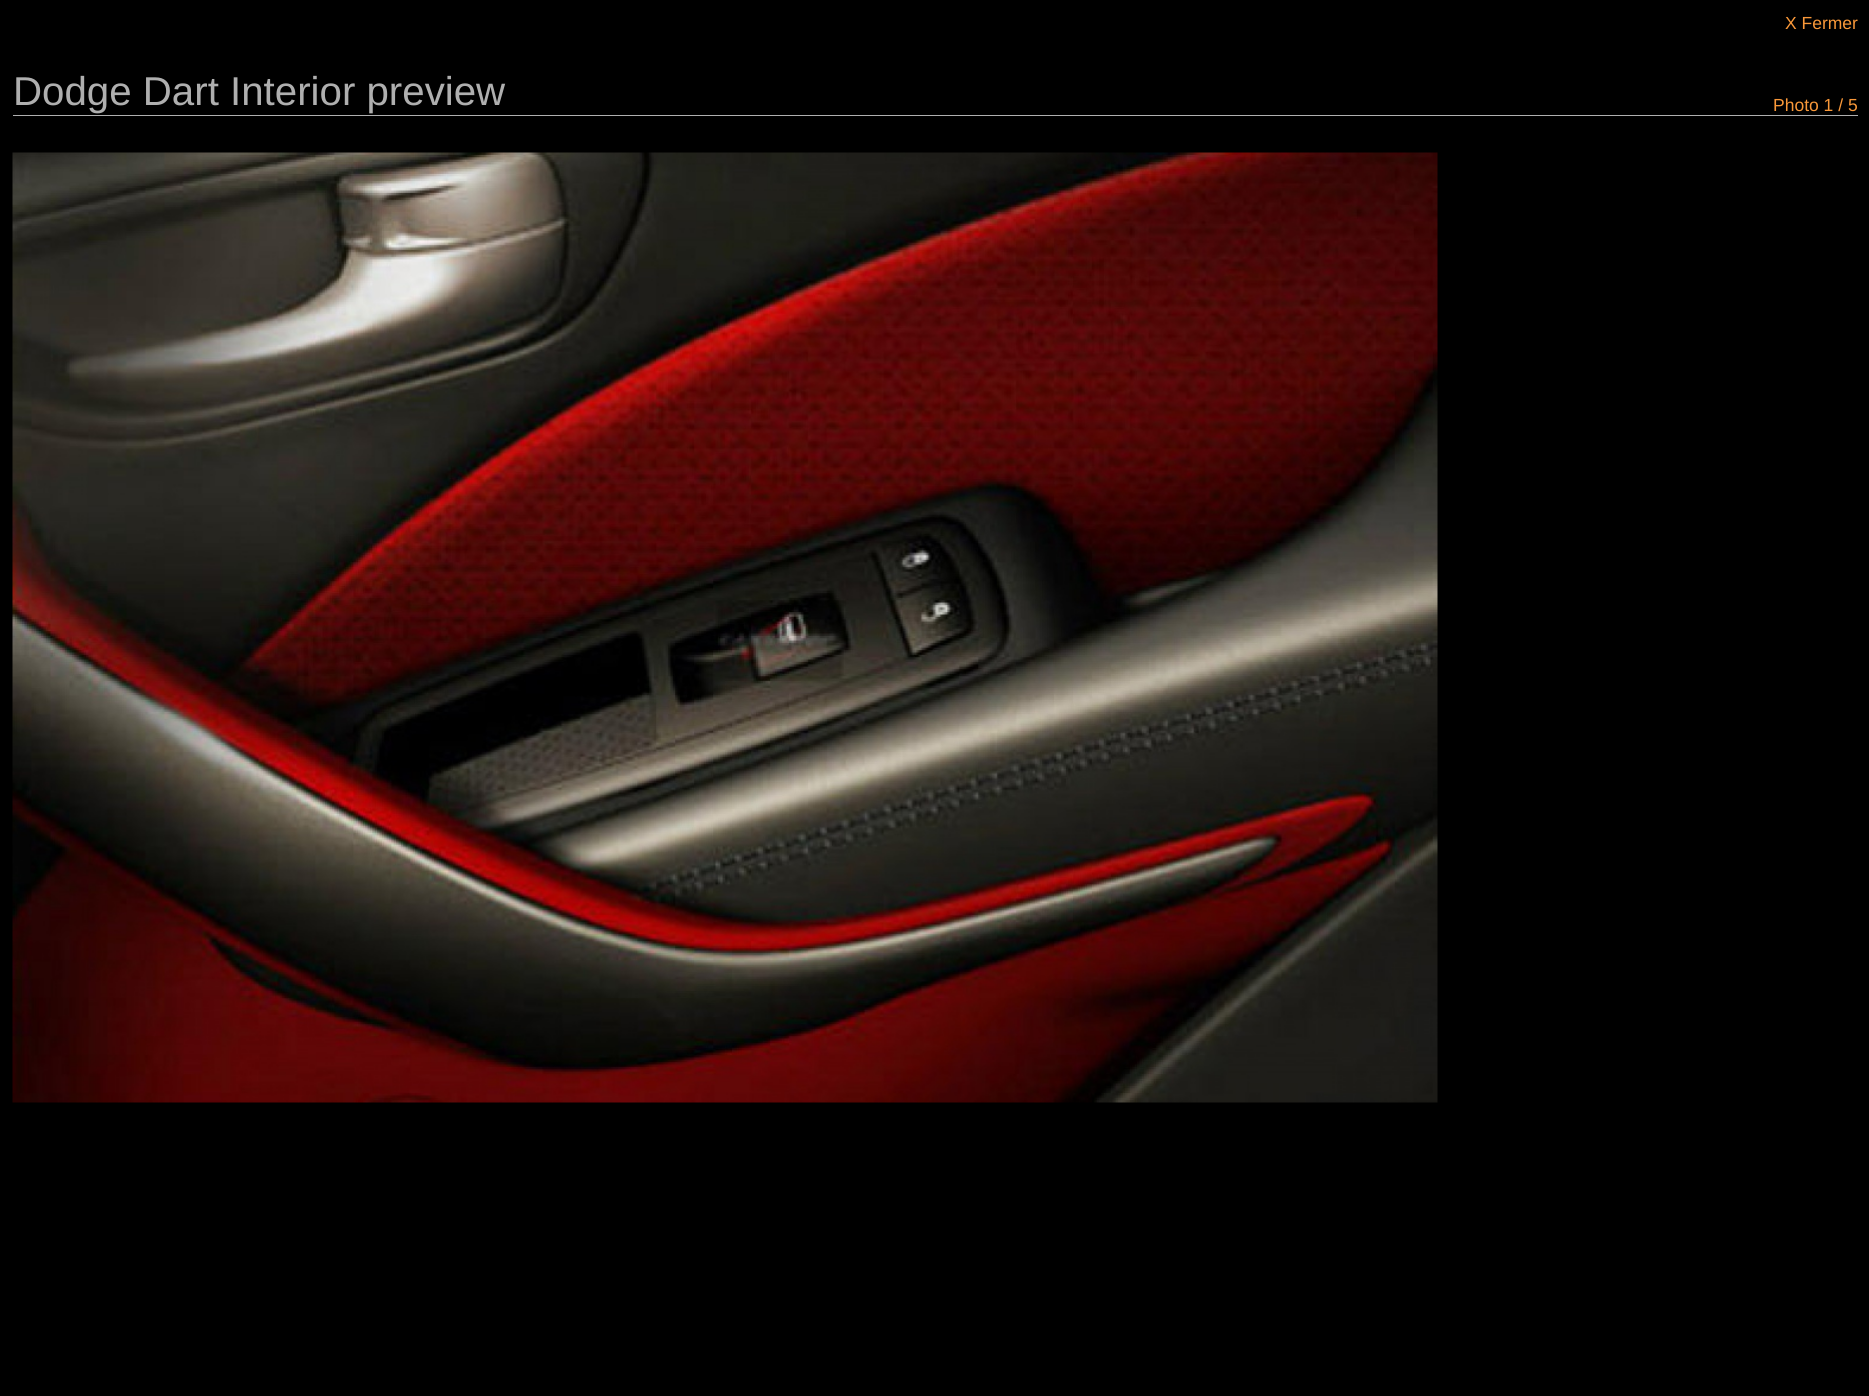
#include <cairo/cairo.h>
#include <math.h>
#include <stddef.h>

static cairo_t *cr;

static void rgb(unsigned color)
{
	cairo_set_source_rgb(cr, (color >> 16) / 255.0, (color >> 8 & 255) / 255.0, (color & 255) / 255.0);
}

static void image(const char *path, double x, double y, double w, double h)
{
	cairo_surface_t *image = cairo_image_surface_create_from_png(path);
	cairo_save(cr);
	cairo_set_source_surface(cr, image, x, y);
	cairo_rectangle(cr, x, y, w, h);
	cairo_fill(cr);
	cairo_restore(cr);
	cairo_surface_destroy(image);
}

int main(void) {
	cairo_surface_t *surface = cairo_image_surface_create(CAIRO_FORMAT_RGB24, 1869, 1396);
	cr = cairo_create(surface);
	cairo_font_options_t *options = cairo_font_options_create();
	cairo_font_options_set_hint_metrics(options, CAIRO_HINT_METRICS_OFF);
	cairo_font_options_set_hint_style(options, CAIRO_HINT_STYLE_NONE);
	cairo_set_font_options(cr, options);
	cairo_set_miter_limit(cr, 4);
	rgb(0x000000);
	cairo_paint(cr);
	rgb(0xafafaf);
	cairo_rectangle(cr, 13, 115, 1845, 1);
	cairo_fill(cr);
	image("img/1.png", 12, 152, 1426, 951);
	cairo_select_font_face(cr, "Liberation Sans", CAIRO_FONT_SLANT_NORMAL, CAIRO_FONT_WEIGHT_NORMAL);
	cairo_set_font_size(cr, 17.5);
	rgb(0xf99839);
	cairo_move_to(cr, 1785, 29);
	cairo_show_text(cr, "X Fermer");
	cairo_set_font_size(cr, 40.25);
	rgb(0xafafaf);
	cairo_move_to(cr, 13, 105);
	cairo_show_text(cr, "Dodge Dart Interior preview");
	cairo_set_font_size(cr, 17.5);
	rgb(0xf99839);
	cairo_move_to(cr, 1773, 111);
	cairo_show_text(cr, "Photo 1 / 5");
	cairo_surface_write_to_png(surface, "page.png");
	cairo_font_options_destroy(options);
	cairo_destroy(cr);
	cairo_surface_destroy(surface);
	return 0;
}
